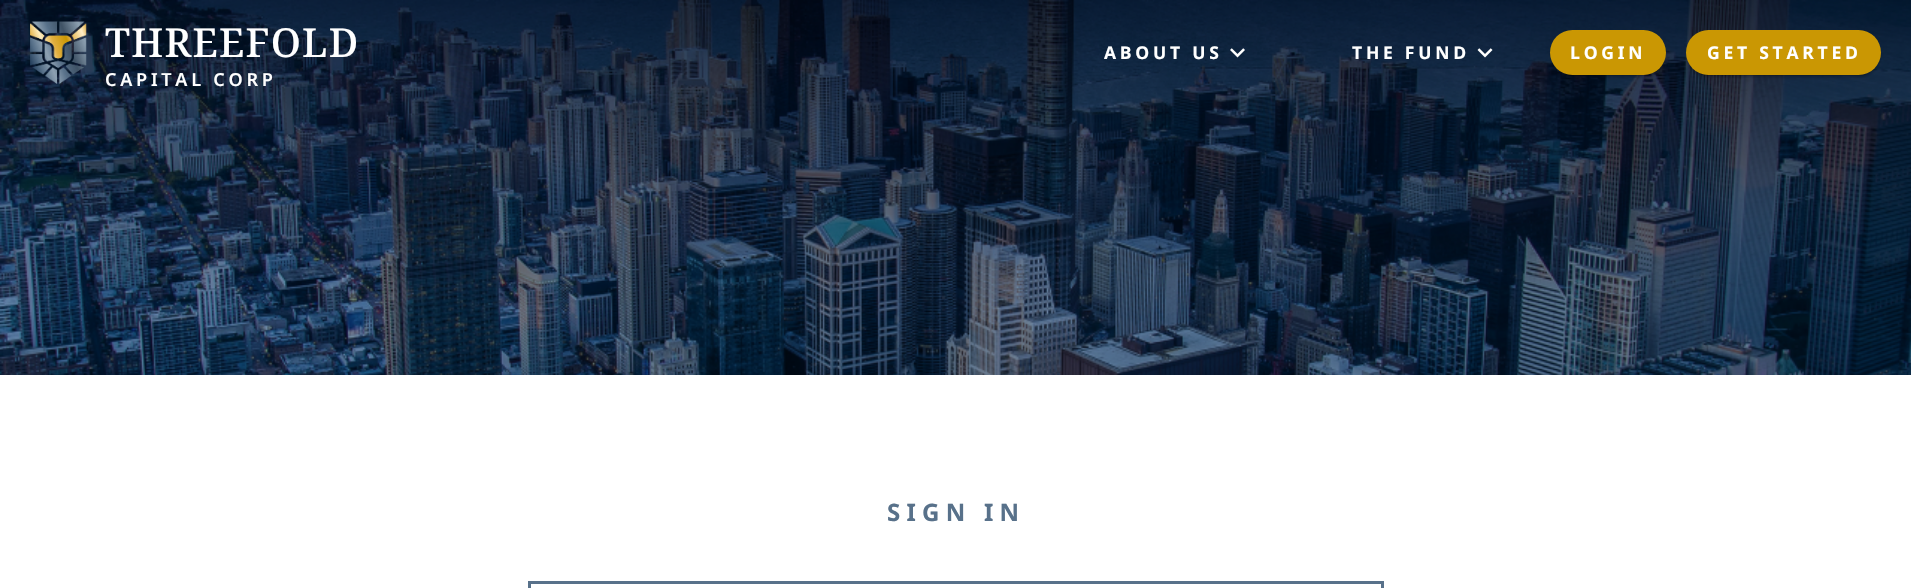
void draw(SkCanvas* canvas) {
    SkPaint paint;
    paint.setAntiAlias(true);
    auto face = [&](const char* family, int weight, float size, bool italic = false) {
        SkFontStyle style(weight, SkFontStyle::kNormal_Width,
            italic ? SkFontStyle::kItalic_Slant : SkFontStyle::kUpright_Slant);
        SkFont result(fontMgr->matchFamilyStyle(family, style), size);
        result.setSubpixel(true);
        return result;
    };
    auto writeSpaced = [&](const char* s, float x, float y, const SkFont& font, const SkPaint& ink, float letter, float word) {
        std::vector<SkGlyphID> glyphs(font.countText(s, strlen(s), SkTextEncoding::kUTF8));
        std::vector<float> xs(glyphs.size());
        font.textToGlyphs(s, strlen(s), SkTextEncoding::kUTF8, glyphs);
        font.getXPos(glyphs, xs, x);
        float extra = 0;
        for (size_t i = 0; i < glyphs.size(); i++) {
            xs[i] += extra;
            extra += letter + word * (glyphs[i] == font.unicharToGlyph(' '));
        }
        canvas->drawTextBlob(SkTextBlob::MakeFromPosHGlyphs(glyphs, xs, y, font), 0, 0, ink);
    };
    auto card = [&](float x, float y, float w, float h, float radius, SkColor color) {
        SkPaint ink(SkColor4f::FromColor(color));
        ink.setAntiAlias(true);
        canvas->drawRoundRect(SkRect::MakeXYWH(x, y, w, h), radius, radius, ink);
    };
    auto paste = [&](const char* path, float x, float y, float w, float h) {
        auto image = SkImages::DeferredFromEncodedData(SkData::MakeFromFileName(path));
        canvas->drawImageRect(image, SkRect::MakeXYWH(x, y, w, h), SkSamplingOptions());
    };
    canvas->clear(SK_ColorWHITE);
    paste("pic1.png", 0, 0, 1911, 375);
    paste("pic2.png", 30, 21, 57, 63);
    auto kFont1 = face("Noto Serif", 500, 40);
    paint.setColor(SK_ColorWHITE);
    writeSpaced("THREEFOLD", 105, 57, kFont1, paint, 1.25f, 0);
    auto kFont2 = face("Noto Sans", 600, 18);
    writeSpaced("CAPITAL CORP", 105, 86, kFont2, paint, 3.75f, 0);
    auto kFont3 = face("Noto Sans", 700, 17.5f);
    writeSpaced("ABOUT US", 1104, 59, kFont3, paint, 3.75f, 0);
    paste("pic3.png", 1230, 48, 15, 10);
    writeSpaced("THE FUND", 1352, 59, kFont3, paint, 3.75f, 0);
    paste("pic4.png", 1477, 48, 16, 10);
    paint.setColor(SkColorSetARGB(36, 0, 0, 0));
    paint.setMaskFilter(SkMaskFilter::MakeBlur(kNormal_SkBlurStyle, 1));
    canvas->drawRoundRect(SkRect::MakeXYWH(1550, 33, 116, 45), 22.5f, 22.5f, paint);
    paint.setMaskFilter(nullptr);
    paint.setColor(SkColorSetARGB(51, 0, 0, 0));
    paint.setMaskFilter(SkMaskFilter::MakeBlur(kNormal_SkBlurStyle, 0.5f));
    canvas->drawRoundRect(SkRect::MakeXYWH(1553, 36, 111, 40), 20, 20, paint);
    paint.setMaskFilter(nullptr);
    card(1550, 30, 116, 45, 22.5f, SkColorSetRGB(202, 151, 3));
    paint.setColor(SK_ColorWHITE);
    writeSpaced("LOGIN", 1570, 59, kFont3, paint, 3.75f, 0);
    paint.setColor(SkColorSetARGB(36, 0, 0, 0));
    paint.setMaskFilter(SkMaskFilter::MakeBlur(kNormal_SkBlurStyle, 1));
    canvas->drawRoundRect(SkRect::MakeXYWH(1686, 33, 195, 45), 22.5f, 22.5f, paint);
    paint.setMaskFilter(nullptr);
    paint.setColor(SkColorSetARGB(51, 0, 0, 0));
    paint.setMaskFilter(SkMaskFilter::MakeBlur(kNormal_SkBlurStyle, 0.5f));
    canvas->drawRoundRect(SkRect::MakeXYWH(1689, 36, 190, 40), 20, 20, paint);
    paint.setMaskFilter(nullptr);
    card(1686, 30, 195, 45, 22.5f, SkColorSetRGB(202, 151, 3));
    paint.setColor(SK_ColorWHITE);
    writeSpaced("GET STARTED", 1707, 59, kFont3, paint, 3.75f, 0);
    auto kFont4 = face("Noto Sans", 700, 24);
    paint.setColor(SkColorSetRGB(88, 113, 138));
    writeSpaced("SIGN IN", 887, 521, kFont4, paint, 6.25f, 0);
    paint.setStyle(SkPaint::kStroke_Style);
    paint.setStrokeWidth(3);
    canvas->drawRect(SkRect::MakeXYWH(529.5f, 582.5f, 853, 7), paint);
}
